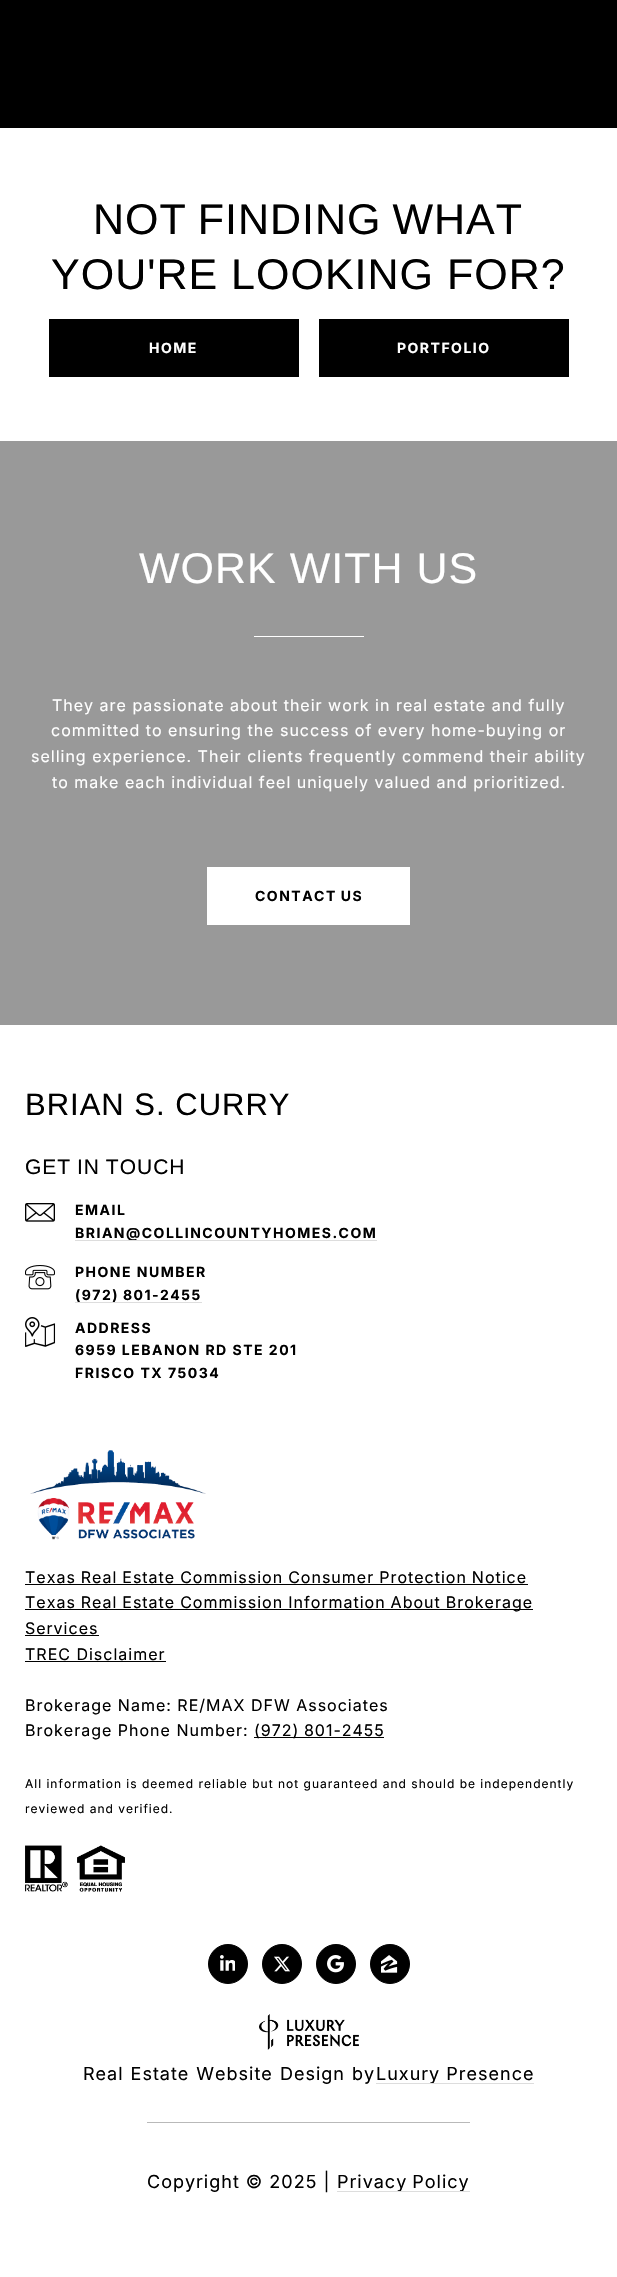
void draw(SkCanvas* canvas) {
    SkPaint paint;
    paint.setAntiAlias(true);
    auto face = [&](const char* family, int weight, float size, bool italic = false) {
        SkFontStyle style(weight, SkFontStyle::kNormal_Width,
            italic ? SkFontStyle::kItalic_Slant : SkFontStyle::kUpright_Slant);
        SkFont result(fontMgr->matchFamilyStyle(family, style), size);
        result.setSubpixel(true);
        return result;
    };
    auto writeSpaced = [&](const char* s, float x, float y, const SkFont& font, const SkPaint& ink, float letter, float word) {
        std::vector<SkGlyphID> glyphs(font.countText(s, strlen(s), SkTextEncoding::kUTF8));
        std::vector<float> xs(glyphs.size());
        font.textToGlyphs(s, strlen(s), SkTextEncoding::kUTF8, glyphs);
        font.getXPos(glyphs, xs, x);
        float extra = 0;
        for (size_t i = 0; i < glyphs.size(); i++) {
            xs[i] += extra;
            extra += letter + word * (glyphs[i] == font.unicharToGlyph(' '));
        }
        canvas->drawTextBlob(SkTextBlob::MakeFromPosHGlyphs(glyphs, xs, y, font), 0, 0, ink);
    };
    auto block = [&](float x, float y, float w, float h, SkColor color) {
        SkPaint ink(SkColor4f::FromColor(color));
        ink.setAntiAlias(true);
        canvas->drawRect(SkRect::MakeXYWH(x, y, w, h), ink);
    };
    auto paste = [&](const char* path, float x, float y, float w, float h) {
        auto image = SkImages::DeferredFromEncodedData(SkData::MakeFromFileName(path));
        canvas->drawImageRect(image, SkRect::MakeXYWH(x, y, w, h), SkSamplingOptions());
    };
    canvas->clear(SK_ColorWHITE);
    block(0, 0, 617, 128, SK_ColorBLACK);
    auto kFont1 = face("Arimo", 400, 43);
    paint.setColor(SK_ColorBLACK);
    writeSpaced("NOT FINDING WHAT", 93, 234, kFont1, paint, 1, -2);
    writeSpaced("YOU'RE LOOKING FOR?", 51, 289, kFont1, paint, 1, 0);
    block(49, 319, 250, 58, SK_ColorBLACK);
    auto kFont2 = face("Inter", 700, 14);
    paint.setColor(SK_ColorWHITE);
    writeSpaced("HOME", 149, 353, kFont2, paint, 1.5f, 0);
    block(319, 319, 250, 58, SK_ColorBLACK);
    writeSpaced("PORTFOLIO", 397, 353, kFont2, paint, 1.5f, 0);
    block(0, 441, 617, 584, SkColorSetRGB(153, 153, 153));
    writeSpaced("WORK WITH US", 139, 583, kFont1, paint, 1, 0);
    block(254, 636, 110, 1, SK_ColorWHITE);
    auto kFont3 = face("Inter", 400, 16);
    writeSpaced("They are passionate about their work in real estate and fully", 52, 711, kFont3, paint, 1, 0);
    writeSpaced("committed to ensuring the success of every home-buying or", 51, 736, kFont3, paint, 1, 0);
    writeSpaced("selling experience. Their clients frequently commend their ability", 31, 762, kFont3, paint, 1, 0);
    writeSpaced("to make each individual feel uniquely valued and prioritized.", 52, 788, kFont3, paint, 1, 0);
    block(207, 867, 203, 58, SK_ColorWHITE);
    paint.setColor(SK_ColorBLACK);
    writeSpaced("CONTACT US", 255, 901, kFont2, paint, 1.5f, -1);
    auto kFont4 = face("Arimo", 400, 31);
    writeSpaced("BRIAN S. CURRY", 25, 1115, kFont4, paint, 1, 0);
    auto kFont5 = face("Arimo", 400, 21);
    writeSpaced("GET IN TOUCH", 25, 1174, kFont5, paint, 1, -1);
    paste("pic1.png", 25, 1203, 30, 19);
    writeSpaced("EMAIL", 75, 1215, kFont2, paint, 1.5f, 0);
    writeSpaced("BRIAN@COLLINCOUNTYHOMES.COM", 75, 1238, kFont2, paint, 1.5f, 0);
    block(75, 1240, 302, 1, SkColorSetRGB(221, 221, 221));
    paste("pic2.png", 25, 1265, 30, 25);
    writeSpaced("PHONE NUMBER", 75, 1277, kFont2, paint, 1.5f, 0);
    writeSpaced("(972) 801-2455", 75, 1300, kFont2, paint, 1.5f, -1);
    block(75, 1302, 127, 1, SkColorSetRGB(221, 221, 221));
    paste("pic3.png", 25, 1317, 31, 30);
    writeSpaced("ADDRESS", 75, 1333, kFont2, paint, 1.5f, 0);
    writeSpaced("6959 LEBANON RD STE 201", 75, 1355, kFont2, paint, 1.5f, 0);
    writeSpaced("FRISCO TX 75034", 75, 1378, kFont2, paint, 1.5f, 0);
    paste("pic4.png", 30, 1450, 176, 90);
    writeSpaced("Texas Real Estate Commission Consumer Protection Notice", 25, 1583, kFont3, paint, 1, -0.5f);
    block(25, 1584, 503, 1, SK_ColorBLACK);
    block(25, 1609, 508, 1, SK_ColorBLACK);
    writeSpaced("Texas Real Estate Commission Information About Brokerage", 25, 1608, kFont3, paint, 1, -0.5f);
    writeSpaced("Services", 25, 1634, kFont3, paint, 1, 0);
    block(25, 1635, 74, 1, SK_ColorBLACK);
    writeSpaced("TREC Disclaimer", 25, 1660, kFont3, paint, 1, 0);
    block(25, 1661, 141, 1, SK_ColorBLACK);
    writeSpaced("Brokerage Name: RE/MAX DFW Associates", 25, 1711, kFont3, paint, 1, 0);
    writeSpaced("Brokerage Phone Number:", 25, 1736, kFont3, paint, 1, 0);
    block(254, 1737, 130, 1, SK_ColorBLACK);
    writeSpaced("(972) 801-2455", 254, 1736, kFont3, paint, 1, -1);
    auto kFont6 = face("Inter", 400, 12);
    writeSpaced("All information is deemed reliable but not guaranteed and should be independently", 25, 1788, kFont6, paint, 1, 0);
    writeSpaced("reviewed and verified.", 25, 1813, kFont6, paint, 1, 0);
    paste("pic5.png", 25, 1845, 100, 47);
    canvas->drawCircle(228, 1964, 19.5f, paint);
    paint.setStyle(SkPaint::kStroke_Style);
    paint.setStrokeWidth(1);
    canvas->drawCircle(228, 1964, 19.5f, paint);
    paste("pic6.png", 220, 1955, 15, 16);
    paint.setStyle(SkPaint::kFill_Style);
    canvas->drawCircle(282, 1964, 19.5f, paint);
    paint.setStyle(SkPaint::kStroke_Style);
    canvas->drawCircle(282, 1964, 19.5f, paint);
    paste("pic7.png", 274, 1956, 16, 16);
    paint.setStyle(SkPaint::kFill_Style);
    canvas->drawCircle(336, 1964, 19.5f, paint);
    paint.setStyle(SkPaint::kStroke_Style);
    canvas->drawCircle(336, 1964, 19.5f, paint);
    paste("pic8.png", 327, 1955, 17, 18);
    paint.setStyle(SkPaint::kFill_Style);
    canvas->drawCircle(390, 1964, 19.5f, paint);
    paint.setStyle(SkPaint::kStroke_Style);
    canvas->drawCircle(390, 1964, 19.5f, paint);
    paste("pic9.png", 381, 1955, 17, 18);
    paste("pic10.png", 259, 2014, 100, 36);
    auto kFont7 = face("Inter", 400, 18);
    paint.setStyle(SkPaint::kFill_Style);
    writeSpaced("Real Estate Website Design by", 83, 2080, kFont7, paint, 1, 1);
    writeSpaced("Luxury Presence", 376, 2080, kFont7, paint, 1, 0);
    block(376, 2083, 158, 1, SkColorSetRGB(221, 221, 221));
    block(147, 2122, 323, 1, SkColorSetRGB(185, 185, 185));
    writeSpaced("Copyright © 2025 |", 147, 2188, kFont7, paint, 1, 0);
    writeSpaced("Privacy Policy", 337, 2188, kFont7, paint, 1, -1);
    block(337, 2191, 133, 1, SkColorSetRGB(221, 221, 221));
}
